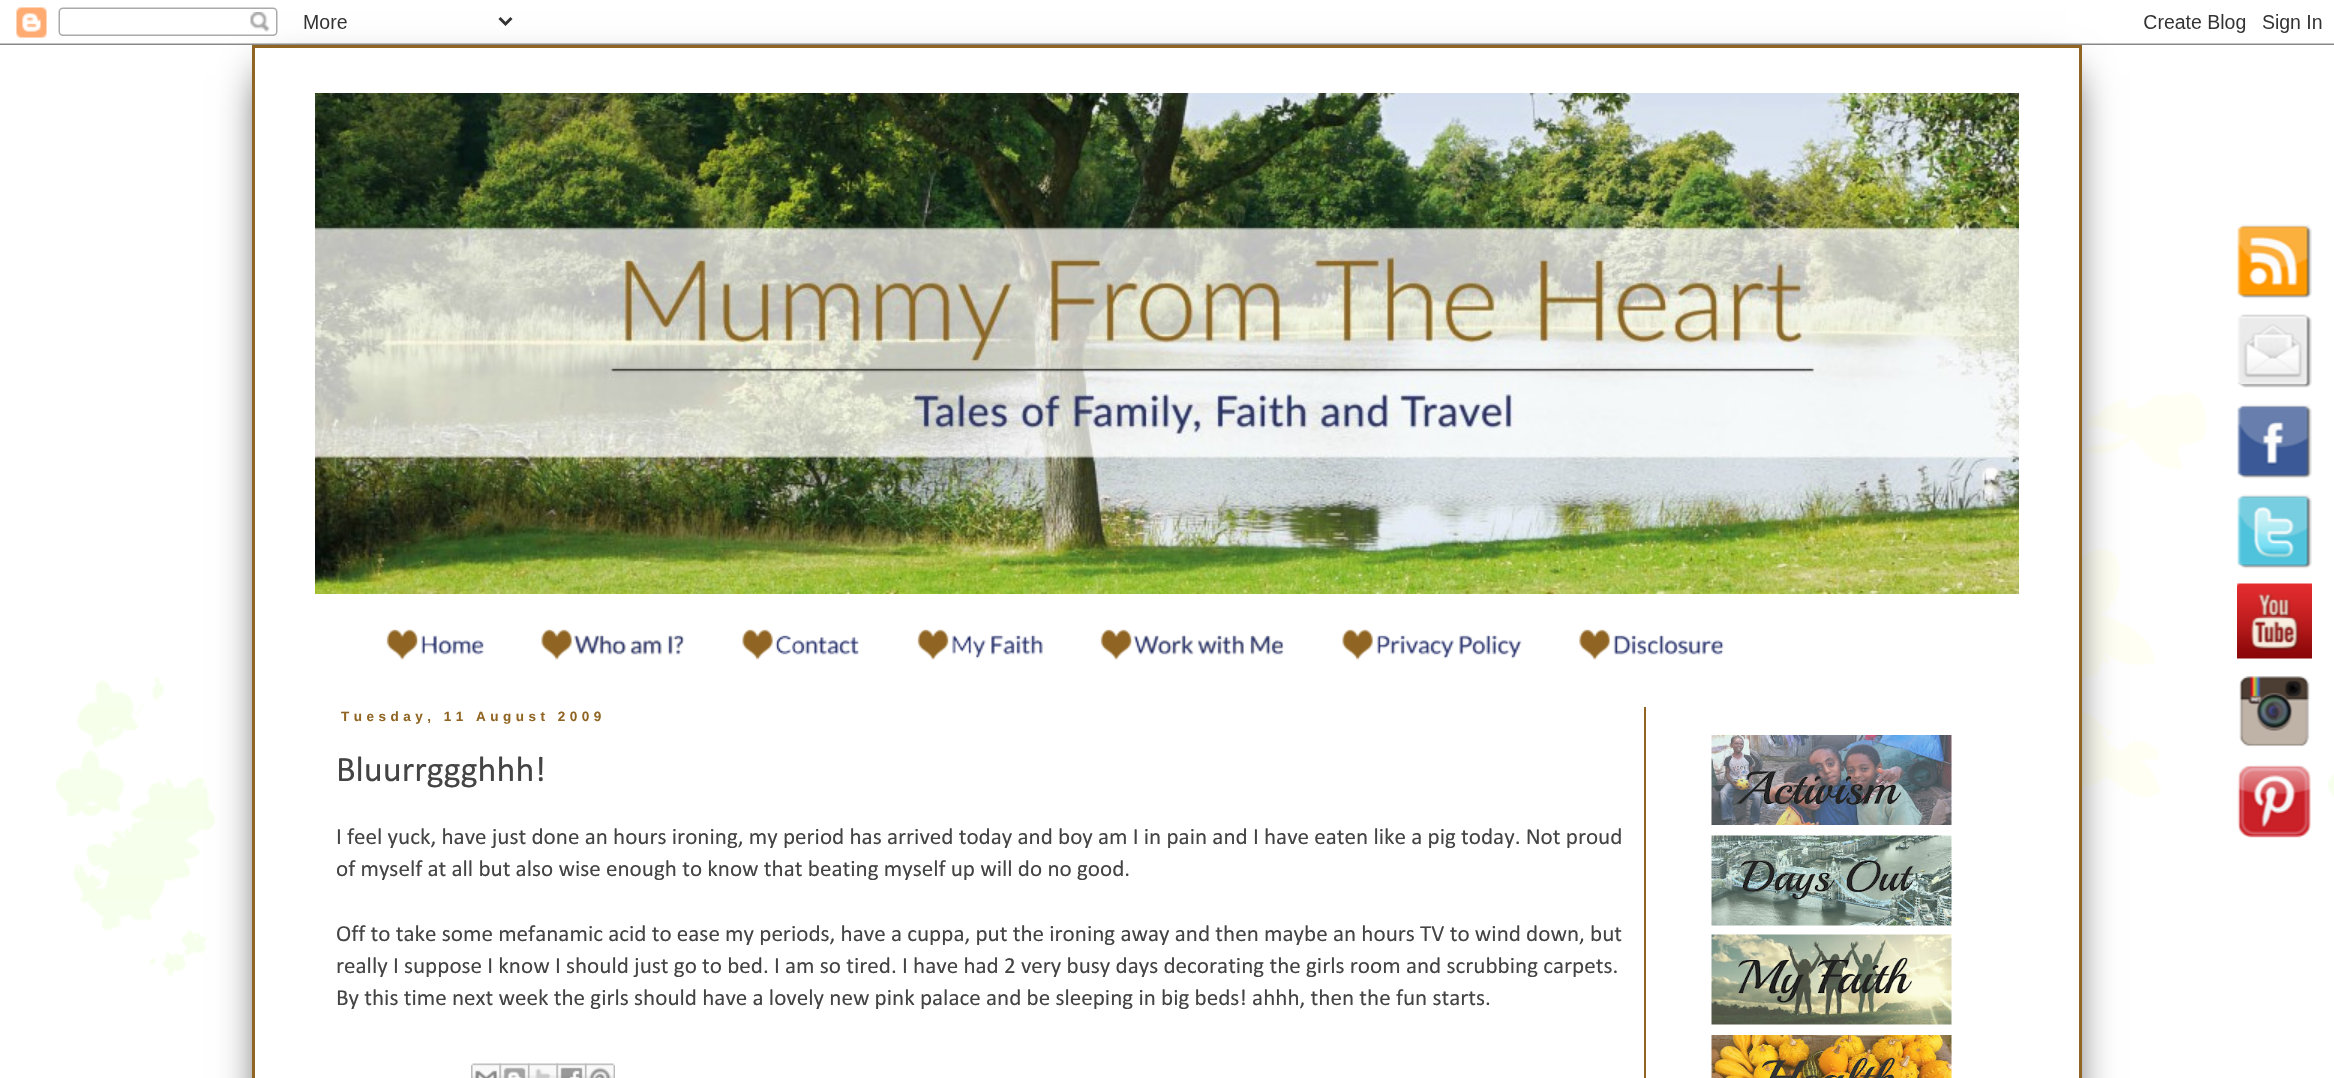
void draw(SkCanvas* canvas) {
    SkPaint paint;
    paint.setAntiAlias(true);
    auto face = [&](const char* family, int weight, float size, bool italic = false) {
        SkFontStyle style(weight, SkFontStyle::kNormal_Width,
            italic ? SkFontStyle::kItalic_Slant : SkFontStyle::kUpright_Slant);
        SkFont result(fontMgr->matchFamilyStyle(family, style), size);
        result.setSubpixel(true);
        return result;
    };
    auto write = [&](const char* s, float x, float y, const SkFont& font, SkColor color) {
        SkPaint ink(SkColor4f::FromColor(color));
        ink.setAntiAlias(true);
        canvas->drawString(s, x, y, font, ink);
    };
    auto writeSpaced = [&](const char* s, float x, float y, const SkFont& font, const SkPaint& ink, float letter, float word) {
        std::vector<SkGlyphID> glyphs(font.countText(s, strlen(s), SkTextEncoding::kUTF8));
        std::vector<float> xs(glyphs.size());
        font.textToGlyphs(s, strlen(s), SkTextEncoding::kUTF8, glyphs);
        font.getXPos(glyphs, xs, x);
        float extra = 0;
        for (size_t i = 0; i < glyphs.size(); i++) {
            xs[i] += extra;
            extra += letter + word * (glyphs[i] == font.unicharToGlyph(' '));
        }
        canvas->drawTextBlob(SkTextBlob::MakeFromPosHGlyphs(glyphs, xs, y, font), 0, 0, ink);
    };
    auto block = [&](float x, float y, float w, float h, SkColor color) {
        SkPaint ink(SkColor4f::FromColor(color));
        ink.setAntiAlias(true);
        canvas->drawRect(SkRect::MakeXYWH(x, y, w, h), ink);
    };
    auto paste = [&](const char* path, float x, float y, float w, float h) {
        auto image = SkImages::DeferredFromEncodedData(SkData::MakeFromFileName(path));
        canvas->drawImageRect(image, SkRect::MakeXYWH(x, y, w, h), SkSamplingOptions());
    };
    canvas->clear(SK_ColorWHITE);
    paste("pic1.png", 55, 393, 2279, 585);
    paint.setColor(SK_ColorBLACK);
    paint.setMaskFilter(SkMaskFilter::MakeBlur(kNormal_SkBlurStyle, 21));
    canvas->drawRect(SkRect::MakeXYWH(267, 75, 1800, 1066), paint);
    paint.setMaskFilter(nullptr);
    paste("pic2.png", 0, 7, 2334, 38);
    paint.setColor(SK_ColorWHITE);
    canvas->drawRect(SkRect::MakeXYWH(253.5f, 46.5f, 1827, 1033), paint);
    paint.setStyle(SkPaint::kStroke_Style);
    paint.setStrokeWidth(3);
    paint.setColor(SkColorSetRGB(144, 101, 35));
    canvas->drawRect(SkRect::MakeXYWH(253.5f, 46.5f, 1827, 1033), paint);
    paste("pic3.png", 315, 93, 1704, 501);
    paste("pic4.png", 2237, 224, 75, 75);
    paste("pic5.png", 2237, 314, 75, 74);
    paste("pic6.png", 2237, 404, 75, 75);
    paste("pic7.png", 2237, 494, 75, 75);
    paste("pic8.png", 2237, 583, 75, 76);
    paste("pic9.png", 2239, 676, 71, 71);
    paste("pic10.png", 2237, 765, 74, 73);
    paste("pic11.png", 386, 629, 98, 32);
    paste("pic12.png", 541, 629, 144, 32);
    paste("pic13.png", 742, 629, 117, 31);
    paste("pic14.png", 917, 629, 126, 32);
    paste("pic15.png", 1100, 629, 184, 32);
    paste("pic16.png", 1342, 629, 180, 32);
    paste("pic17.png", 1579, 629, 145, 32);
    auto kFont1 = face("Liberation Sans", 700, 13.5f);
    paint.setStyle(SkPaint::kFill_Style);
    writeSpaced("Tuesday, 11 August 2009", 341, 721, kFont1, paint, 4.5f, 0);
    auto kFont2 = face("Calibri", 400, 36);
    write("Bluurrggghhh!", 336, 781, kFont2, SkColorSetRGB(68, 68, 68));
    auto kFont3 = face("Calibri", 400, 23.1f);
    write("I feel yuck, have just done an hours ironing, my period has arrived today and boy am I in pain and I have eaten like a pig today. Not proud", 336, 844, kFont3, SkColorSetRGB(68, 68, 68));
    write("of myself at all but also wise enough to know that beating myself up will do no good.", 336, 876, kFont3, SkColorSetRGB(68, 68, 68));
    write("Off to take some mefanamic acid to ease my periods, have a cuppa, put the ironing away and then maybe an hours TV to wind down, but", 336, 941, kFont3, SkColorSetRGB(68, 68, 68));
    write("really I suppose I know I should just go to bed. I am so tired. I have had 2 very busy days decorating the girls room and scrubbing carpets.", 336, 973, kFont3, SkColorSetRGB(68, 68, 68));
    write("By this time next week the girls should have a lovely new pink palace and be sleeping in big beds! ahhh, then the fun starts.", 336, 1005, kFont3, SkColorSetRGB(68, 68, 68));
    paste("pic18.png", 471, 1063, 30, 15);
    paste("pic19.png", 499, 1063, 31, 15);
    paste("pic20.png", 528, 1063, 30, 15);
    paste("pic21.png", 556, 1063, 31, 15);
    paste("pic22.png", 585, 1063, 30, 15);
    paste("pic23.png", 1711, 735, 241, 90);
    paste("pic24.png", 1711, 835, 241, 91);
    paste("pic25.png", 1711, 934, 241, 91);
    paste("pic26.png", 1711, 1035, 241, 43);
    block(1644, 707, 2, 371, SkColorSetRGB(144, 101, 35));
}
